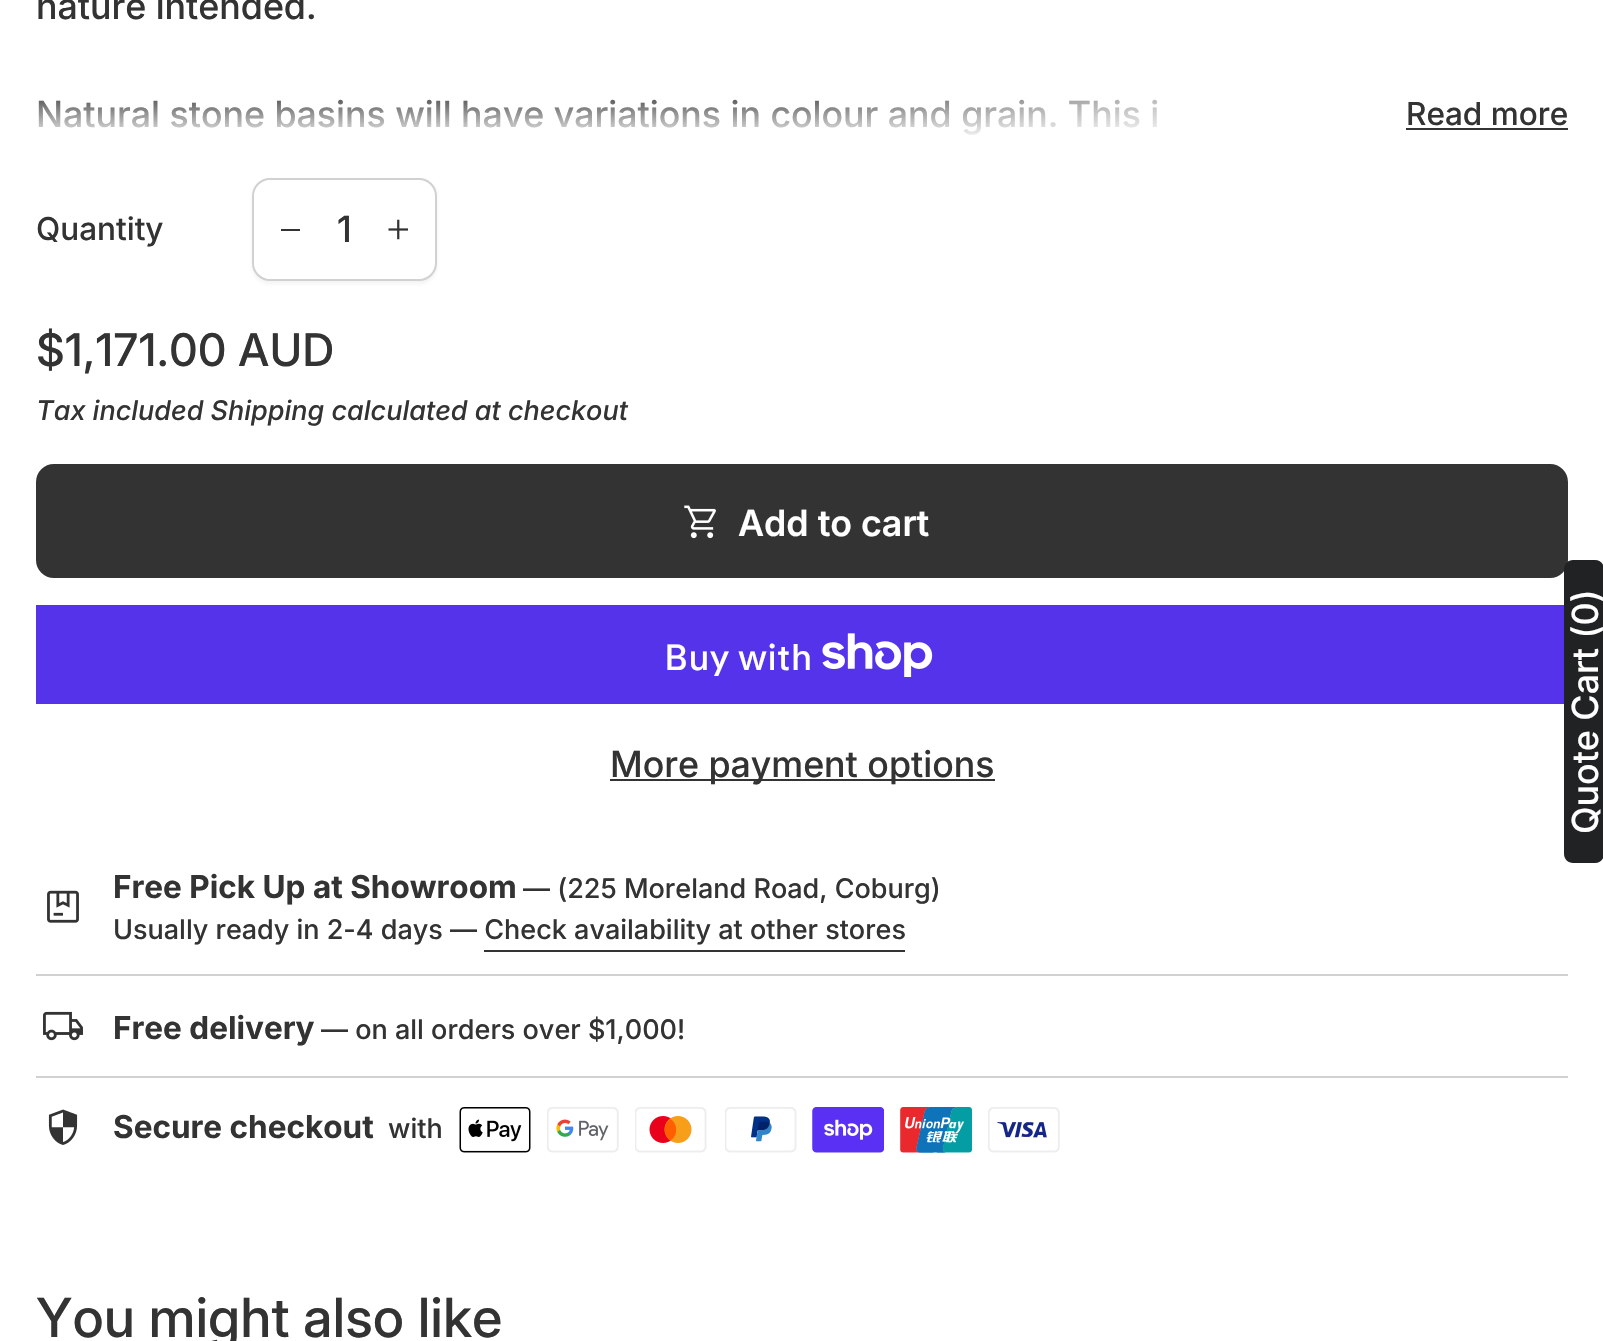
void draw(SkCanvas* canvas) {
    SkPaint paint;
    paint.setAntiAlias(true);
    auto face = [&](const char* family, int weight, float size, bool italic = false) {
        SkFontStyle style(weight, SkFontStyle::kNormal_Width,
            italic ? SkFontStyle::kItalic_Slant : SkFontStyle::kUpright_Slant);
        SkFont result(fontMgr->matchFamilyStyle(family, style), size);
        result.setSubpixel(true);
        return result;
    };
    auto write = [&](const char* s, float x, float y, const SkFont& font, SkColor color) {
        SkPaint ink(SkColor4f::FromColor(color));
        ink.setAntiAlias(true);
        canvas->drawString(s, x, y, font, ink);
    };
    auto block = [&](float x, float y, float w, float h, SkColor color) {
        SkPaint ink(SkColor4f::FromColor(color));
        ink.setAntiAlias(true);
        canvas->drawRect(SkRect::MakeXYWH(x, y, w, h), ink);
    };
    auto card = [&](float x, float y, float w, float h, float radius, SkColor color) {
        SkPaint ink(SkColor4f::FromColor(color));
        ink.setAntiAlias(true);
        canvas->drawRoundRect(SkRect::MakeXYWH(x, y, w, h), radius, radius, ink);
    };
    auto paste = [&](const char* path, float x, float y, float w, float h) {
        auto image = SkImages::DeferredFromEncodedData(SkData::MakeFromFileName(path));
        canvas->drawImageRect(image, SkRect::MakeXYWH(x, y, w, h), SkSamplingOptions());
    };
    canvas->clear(SK_ColorWHITE);
    auto kFont1 = face("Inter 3", 500, 36);
    write("nature intended.", 36, 19, kFont1, SkColorSetRGB(51, 51, 51));
    write("Natural stone basins will have variations in colour and grain. This i", 36, 127, kFont1, SkColorSetRGB(51, 51, 51));
    {
        const SkColor colors[] = {SK_ColorWHITE, SkColorSetARGB(0, 255, 255, 255)};
        const float stops[] = {0.1f, 0.5f};
        const SkPoint ends[] = {{1568, 117}, {36, 117}};
        paint.setShader(SkGradientShader::MakeLinear(ends, colors, stops, 2, SkTileMode::kClamp));
        paint.setAlpha(255);
    }
    canvas->drawRect(SkRect::MakeXYWH(815, 99, 343, 36), paint);
    {
        const SkColor colors[] = {SK_ColorWHITE, SkColorSetARGB(0, 255, 255, 255)};
        const float stops[] = {0, 1};
        const SkPoint ends[] = {{802, 142}, {802, 88}};
        paint.setShader(SkGradientShader::MakeLinear(ends, colors, stops, 2, SkTileMode::kClamp));
        paint.setAlpha(255);
    }
    canvas->drawRect(SkRect::MakeXYWH(38, 99, 1120, 36), paint);
    auto kFont2 = face("Inter", 500, 31.5f);
    write("Read more", 1406, 125, kFont2, SkColorSetRGB(51, 51, 51));
    block(1406, 128, 162, 2, SkColorSetRGB(51, 51, 51));
    write("Quantity", 36, 240, kFont2, SkColorSetRGB(51, 51, 51));
    paint.setShader(nullptr);
    paint.setColor(SkColorSetARGB(13, 16, 24, 40));
    paint.setMaskFilter(SkMaskFilter::MakeBlur(kNormal_SkBlurStyle, 2));
    canvas->drawRoundRect(SkRect::MakeXYWH(252, 180, 185, 104), 18, 18, paint);
    paint.setMaskFilter(nullptr);
    paint.setColor(SK_ColorWHITE);
    canvas->drawRoundRect(SkRect::MakeXYWH(253, 179, 183, 101), 17, 17, paint);
    paint.setStyle(SkPaint::kStroke_Style);
    paint.setStrokeWidth(2);
    paint.setColor(SkColorSetRGB(209, 209, 209));
    canvas->drawRoundRect(SkRect::MakeXYWH(253, 179, 183, 101), 17, 17, paint);
    card(254, 180, 180, 99, 18, SK_ColorWHITE);
    block(281, 229, 19, 2, SkColorSetRGB(51, 51, 51));
    write("1", 337, 242, kFont1, SkColorSetRGB(51, 51, 51));
    paste("pic1.png", 388, 219, 20, 21);
    auto kFont3 = face("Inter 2", 500, 45);
    write("$1,171.00 AUD", 36, 366, kFont3, SkColorSetRGB(51, 51, 51));
    auto kFont4 = face("Inter", 500, 27, true);
    write("Tax included Shipping calculated at checkout", 36, 420, kFont4, SkColorSetRGB(51, 51, 51));
    paint.setStyle(SkPaint::kFill_Style);
    paint.setColor(SkColorSetRGB(51, 51, 51));
    canvas->drawRoundRect(SkRect::MakeXYWH(37, 465, 1530, 112), 17, 17, paint);
    paint.setStyle(SkPaint::kStroke_Style);
    canvas->drawRoundRect(SkRect::MakeXYWH(37, 465, 1530, 112), 17, 17, paint);
    paste("pic2.png", 684, 505, 32, 34);
    auto kFont5 = face("Inter", 600, 36);
    write("Add to cart", 738, 536, kFont5, SK_ColorWHITE);
    block(36, 605, 1528, 99, SkColorSetRGB(84, 51, 235));
    auto kFont6 = face("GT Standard", 500, 36);
    write("Buy with", 664, 670, kFont6, SK_ColorWHITE);
    paste("pic3.png", 822, 633, 111, 44);
    block(610, 779, 385, 2, SkColorSetRGB(51, 51, 51));
    write("More payment options", 610, 777, kFont1, SkColorSetRGB(51, 51, 51));
    block(36, 974, 1532, 2, SkColorSetRGB(209, 209, 209));
    paste("pic4.png", 47, 890, 32, 33);
    auto kFont7 = face("Inter", 700, 31.5f);
    write("Free Pick Up at Showroom", 113, 898, kFont7, SkColorSetRGB(51, 51, 51));
    auto kFont8 = face("Inter", 500, 27);
    write("— (225 Moreland Road, Coburg)", 523, 898, kFont8, SkColorSetRGB(51, 51, 51));
    write("Usually ready in 2-4 days — Check availability at other stores", 113, 939, kFont8, SkColorSetRGB(51, 51, 51));
    block(484, 950, 421, 2, SkColorSetRGB(51, 51, 51));
    paste("pic5.png", 43, 1011, 40, 30);
    write("Free delivery", 113, 1039, kFont7, SkColorSetRGB(51, 51, 51));
    write("— on all orders over $1,000!", 321, 1039, kFont8, SkColorSetRGB(51, 51, 51));
    block(36, 1076, 1532, 2, SkColorSetRGB(209, 209, 209));
    paste("pic6.png", 48, 1109, 30, 36);
    write("Secure checkout", 113, 1138, kFont7, SkColorSetRGB(51, 51, 51));
    write("with", 388, 1138, kFont8, SkColorSetRGB(51, 51, 51));
    paste("pic7.png", 459, 1107, 72, 46);
    paste("pic8.png", 547, 1107, 72, 46);
    paste("pic9.png", 635, 1107, 72, 46);
    paste("pic10.png", 725, 1107, 72, 46);
    paste("pic11.png", 812, 1107, 72, 46);
    paste("pic12.png", 900, 1107, 72, 46);
    paste("pic13.png", 988, 1107, 72, 46);
    auto kFont9 = face("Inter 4", 500, 54);
    write("You might also like", 36, 1337, kFont9, SkColorSetRGB(51, 51, 51));
    paint.setStyle(SkPaint::kFill_Style);
    paint.setColor(SkColorSetRGB(32, 34, 35));
    canvas->drawPath(SkPathBuilder().moveTo(1564, 854).lineTo(1564, 569).cubicTo(1564, 564, 1568, 560, 1573, 560).lineTo(1595, 560).cubicTo(1600, 560, 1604, 564, 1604, 569).lineTo(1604, 854).cubicTo(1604, 859, 1600, 863, 1595, 863).lineTo(1573, 863).cubicTo(1568, 863, 1564, 859, 1564, 854).close().detach(), paint);
    canvas->save();
    canvas->rotate(-90, 1598, 834);
    write("Quote Cart (0)", 1598, 834, kFont1, SK_ColorWHITE);
    canvas->restore();
}
